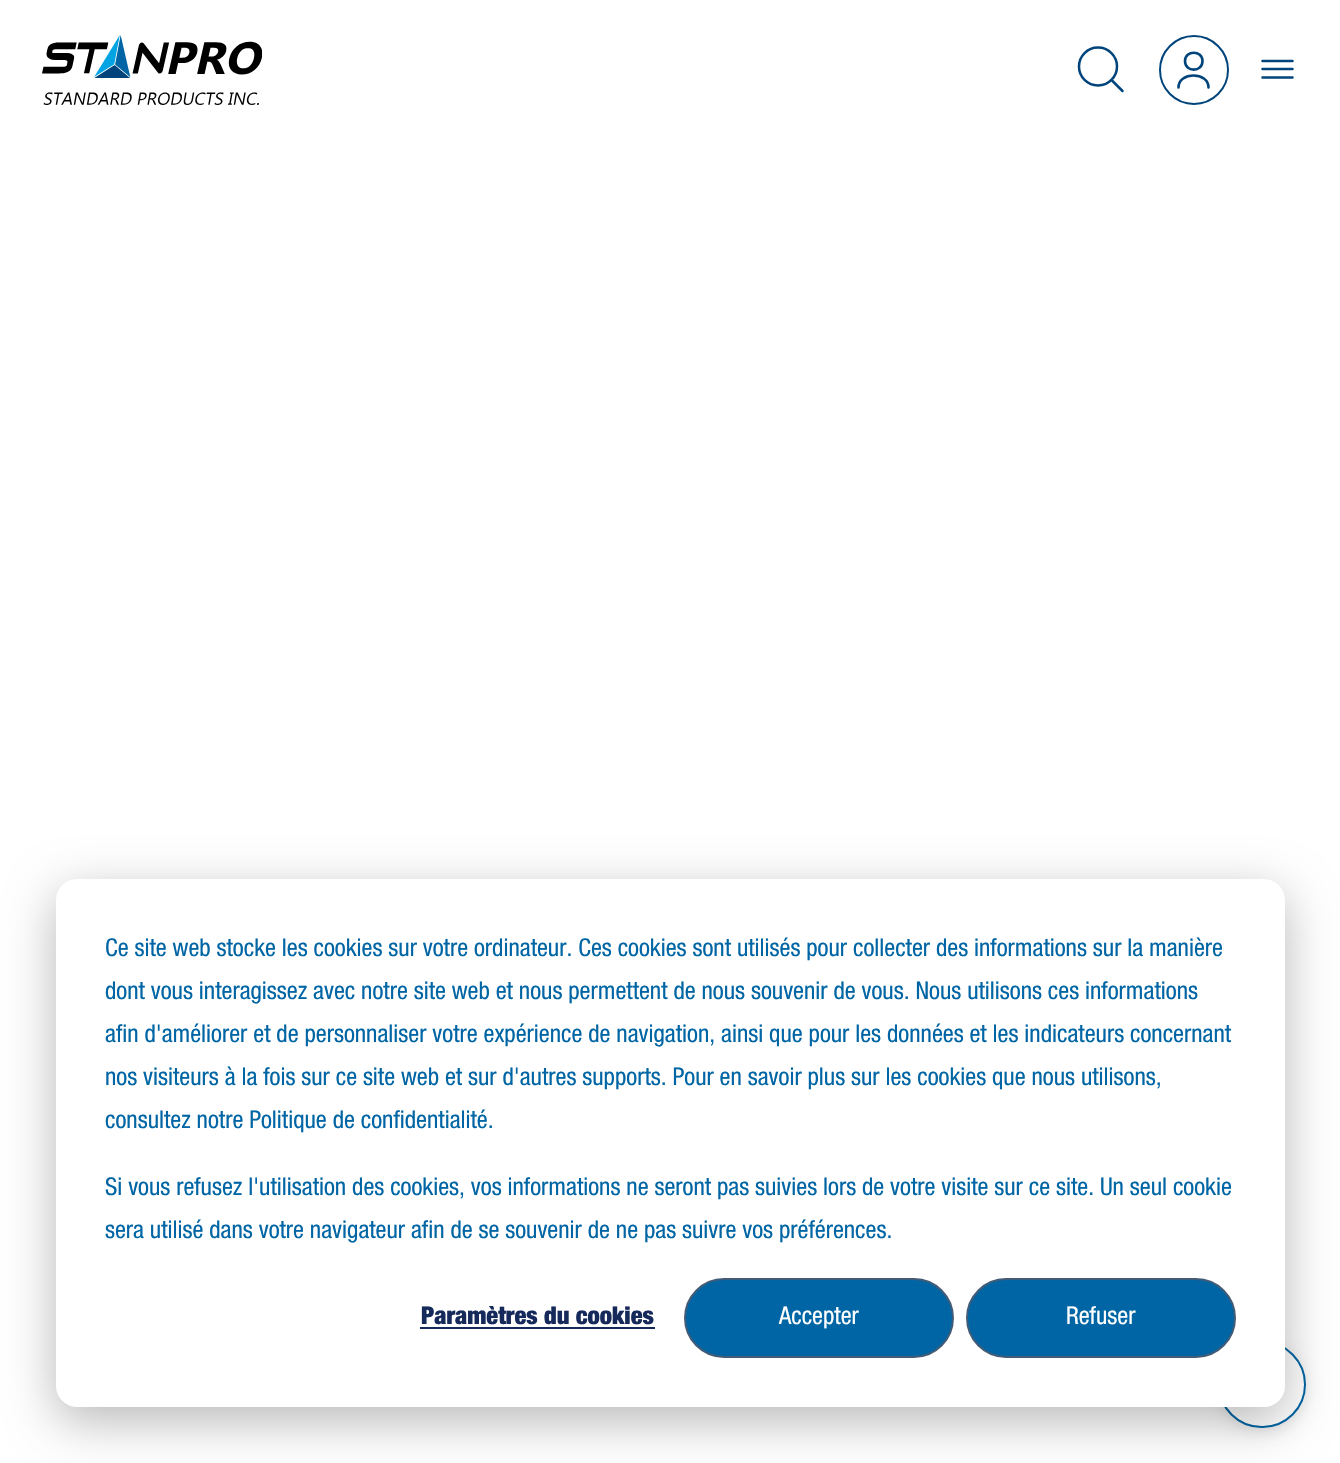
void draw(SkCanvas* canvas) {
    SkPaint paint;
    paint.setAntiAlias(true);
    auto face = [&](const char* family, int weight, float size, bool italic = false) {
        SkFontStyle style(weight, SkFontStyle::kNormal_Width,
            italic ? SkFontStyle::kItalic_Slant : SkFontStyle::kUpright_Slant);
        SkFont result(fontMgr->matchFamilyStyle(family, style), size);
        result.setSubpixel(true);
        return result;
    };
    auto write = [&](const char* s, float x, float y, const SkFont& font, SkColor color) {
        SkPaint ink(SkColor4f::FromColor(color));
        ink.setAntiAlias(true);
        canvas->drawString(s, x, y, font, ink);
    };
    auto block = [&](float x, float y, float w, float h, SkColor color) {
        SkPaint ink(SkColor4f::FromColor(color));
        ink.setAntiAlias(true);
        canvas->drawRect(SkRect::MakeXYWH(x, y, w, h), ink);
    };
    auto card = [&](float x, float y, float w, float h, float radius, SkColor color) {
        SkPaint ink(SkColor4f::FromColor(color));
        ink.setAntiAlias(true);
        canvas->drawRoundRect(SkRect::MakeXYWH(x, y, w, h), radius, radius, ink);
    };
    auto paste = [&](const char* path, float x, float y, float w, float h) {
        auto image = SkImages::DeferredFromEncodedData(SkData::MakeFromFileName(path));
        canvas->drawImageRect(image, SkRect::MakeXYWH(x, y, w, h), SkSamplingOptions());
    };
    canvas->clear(SK_ColorWHITE);
    paste("pic1.png", 42, 35, 221, 70);
    paint.setStyle(SkPaint::kStroke_Style);
    paint.setStrokeWidth(2.5f);
    paint.setStrokeCap(SkPaint::kRound_Cap);
    paint.setStrokeJoin(SkPaint::kRound_Join);
    paint.setColor(SkColorSetRGB(0, 68, 123));
    canvas->drawPath(SkPathBuilder().moveTo(1098, 85.5f).cubicTo(1108.5f, 85.5f, 1117, 77, 1117, 66.5f).cubicTo(1117, 56, 1108.5f, 47.5f, 1098, 47.5f).cubicTo(1087.5f, 47.5f, 1079, 56, 1079, 66.5f).cubicTo(1079, 77, 1087.5f, 85.5f, 1098, 85.5f).close().moveTo(1111.5f, 80).lineTo(1122.5f, 91).detach(), paint);
    paint.setStrokeWidth(2);
    paint.setStrokeCap(SkPaint::kButt_Cap);
    paint.setStrokeJoin(SkPaint::kMiter_Join);
    canvas->drawCircle(1194, 70, 34, paint);
    paint.setStrokeWidth(2.6f);
    paint.setStrokeCap(SkPaint::kRound_Cap);
    paint.setStrokeJoin(SkPaint::kRound_Join);
    canvas->drawPath(SkPathBuilder().moveTo(1208.5f, 87.5f).cubicTo(1208.5f, 71.5f, 1178.5f, 71.5f, 1178.5f, 87.5f).moveTo(1202.5f, 61).cubicTo(1202.5f, 72.5f, 1185, 72.5f, 1185, 61).cubicTo(1185, 50, 1202.5f, 50, 1202.5f, 61).close().detach(), paint);
    paint.setStrokeWidth(2.5f);
    paint.setStrokeJoin(SkPaint::kMiter_Join);
    canvas->drawPath(SkPathBuilder().moveTo(1262.5f, 61).lineTo(1292.5f, 61).moveTo(1262.5f, 69).lineTo(1292.5f, 69).moveTo(1262.5f, 77.5f).lineTo(1292.5f, 77.5f).detach(), paint);
    paint.setStyle(SkPaint::kFill_Style);
    paint.setColor(SkColorSetARGB(26, 0, 0, 0));
    paint.setMaskFilter(SkMaskFilter::MakeBlur(kNormal_SkBlurStyle, 7));
    canvas->drawRoundRect(SkRect::MakeXYWH(1218, 1344, 88, 88), 44, 44, paint);
    paint.setMaskFilter(nullptr);
    paint.setColor(SK_ColorWHITE);
    canvas->drawRoundRect(SkRect::MakeXYWH(1219, 1342, 86, 85), 42.5f, 42.5f, paint);
    paint.setStyle(SkPaint::kStroke_Style);
    paint.setStrokeWidth(2);
    paint.setStrokeCap(SkPaint::kButt_Cap);
    paint.setColor(SkColorSetRGB(0, 101, 164));
    canvas->drawRoundRect(SkRect::MakeXYWH(1219, 1342, 86, 85), 42.5f, 42.5f, paint);
    paint.setStyle(SkPaint::kFill_Style);
    paint.setColor(SkColorSetARGB(71, 0, 0, 0));
    paint.setMaskFilter(SkMaskFilter::MakeBlur(kNormal_SkBlurStyle, 24.5f));
    canvas->drawRoundRect(SkRect::MakeXYWH(56, 893, 1229, 528), 21, 21, paint);
    paint.setMaskFilter(nullptr);
    card(56, 879, 1229, 528, 21, SK_ColorWHITE);
    auto kFont1 = face("Helvetica Neue", 400, 24.5f);
    write("Ce site web stocke les cookies sur votre ordinateur. Ces cookies sont utilisés pour collecter des informations sur la manière", 105, 956, kFont1, SkColorSetRGB(0, 101, 164));
    write("dont vous interagissez avec notre site web et nous permettent de nous souvenir de vous. Nous utilisons ces informations", 105, 999, kFont1, SkColorSetRGB(0, 101, 164));
    write("afin d'améliorer et de personnaliser votre expérience de navigation, ainsi que pour les données et les indicateurs concernant", 105, 1042, kFont1, SkColorSetRGB(0, 101, 164));
    write("nos visiteurs à la fois sur ce site web et sur d'autres supports. Pour en savoir plus sur les cookies que nous utilisons,", 105, 1085, kFont1, SkColorSetRGB(0, 101, 164));
    write("consultez notre Politique de confidentialité.", 105, 1128, kFont1, SkColorSetRGB(0, 101, 164));
    write("Si vous refusez l'utilisation des cookies, vos informations ne seront pas suivies lors de votre visite sur ce site. Un seul cookie", 105, 1195, kFont1, SkColorSetRGB(0, 101, 164));
    write("sera utilisé dans votre navigateur afin de se souvenir de ne pas suivre vos préférences.", 105, 1238, kFont1, SkColorSetRGB(0, 101, 164));
    auto kFont2 = face("Helvetica Neue", 900, 24.5f);
    write("Paramètres du cookies", 421, 1324, kFont2, SkColorSetRGB(21, 41, 90));
    block(420, 1327, 235, 2, SkColorSetRGB(21, 41, 90));
    paint.setColor(SkColorSetRGB(0, 101, 164));
    canvas->drawRoundRect(SkRect::MakeXYWH(685, 1279, 268, 78), 39, 39, paint);
    paint.setStyle(SkPaint::kStroke_Style);
    paint.setColor(SkColorSetRGB(66, 91, 118));
    canvas->drawRoundRect(SkRect::MakeXYWH(685, 1279, 268, 78), 39, 39, paint);
    write("Accepter", 779, 1324, kFont1, SK_ColorWHITE);
    paint.setStyle(SkPaint::kFill_Style);
    paint.setColor(SkColorSetRGB(0, 101, 164));
    canvas->drawRoundRect(SkRect::MakeXYWH(967, 1279, 268, 78), 39, 39, paint);
    paint.setStyle(SkPaint::kStroke_Style);
    paint.setColor(SkColorSetRGB(66, 91, 118));
    canvas->drawRoundRect(SkRect::MakeXYWH(967, 1279, 268, 78), 39, 39, paint);
    write("Refuser", 1066, 1324, kFont1, SK_ColorWHITE);
}
